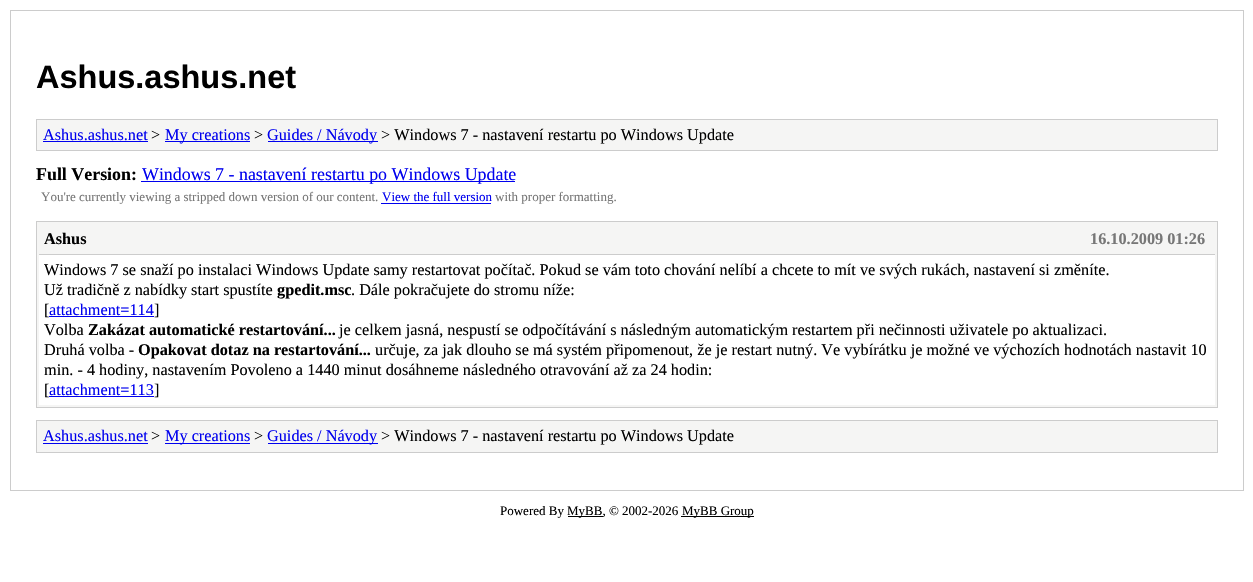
void draw(SkCanvas* canvas) {
    SkPaint paint;
    paint.setAntiAlias(true);
    auto face = [&](const char* family, int weight, float size, bool italic = false) {
        SkFontStyle style(weight, SkFontStyle::kNormal_Width,
            italic ? SkFontStyle::kItalic_Slant : SkFontStyle::kUpright_Slant);
        SkFont result(fontMgr->matchFamilyStyle(family, style), size);
        result.setSubpixel(true);
        return result;
    };
    auto write = [&](const char* s, float x, float y, const SkFont& font, SkColor color) {
        SkPaint ink(SkColor4f::FromColor(color));
        ink.setAntiAlias(true);
        canvas->drawString(s, x, y, font, ink);
    };
    auto block = [&](float x, float y, float w, float h, SkColor color) {
        SkPaint ink(SkColor4f::FromColor(color));
        ink.setAntiAlias(true);
        canvas->drawRect(SkRect::MakeXYWH(x, y, w, h), ink);
    };
    canvas->clear(SK_ColorWHITE);
    paint.setStyle(SkPaint::kStroke_Style);
    paint.setStrokeWidth(1);
    paint.setColor(SkColorSetRGB(204, 204, 204));
    canvas->drawRect(SkRect::MakeXYWH(10.5f, 10.5f, 1233, 480), paint);
    auto kFont1 = face("Liberation Sans", 700, 32.5f);
    write("Ashus.ashus.net", 36, 88, kFont1, SK_ColorBLACK);
    paint.setStyle(SkPaint::kFill_Style);
    paint.setColor(SkColorSetRGB(245, 245, 244));
    canvas->drawRect(SkRect::MakeXYWH(36.5f, 119.5f, 1181, 31), paint);
    paint.setStyle(SkPaint::kStroke_Style);
    paint.setColor(SkColorSetRGB(204, 204, 204));
    canvas->drawRect(SkRect::MakeXYWH(36.5f, 119.5f, 1181, 31), paint);
    auto kFont2 = face("Liberation Serif", 400, 16.25f);
    write("Ashus.ashus.net", 43, 140, kFont2, SkColorSetRGB(0, 0, 238));
    block(43, 141, 105, 1, SkColorSetRGB(0, 0, 238));
    write(">", 151, 140, kFont2, SK_ColorBLACK);
    block(165, 141, 85, 1, SkColorSetRGB(0, 0, 238));
    write("My creations", 165, 140, kFont2, SkColorSetRGB(0, 0, 238));
    write(">", 254, 140, kFont2, SK_ColorBLACK);
    block(268, 141, 110, 1, SkColorSetRGB(0, 0, 238));
    write("Guides / Návody", 267, 140, kFont2, SkColorSetRGB(0, 0, 238));
    write("> Windows 7 - nastavení restartu po Windows Update", 381, 140, kFont2, SK_ColorBLACK);
    auto kFont3 = face("Liberation Serif", 700, 17.9f);
    write("Full Version:", 36, 180, kFont3, SK_ColorBLACK);
    block(141, 181, 374, 1, SkColorSetRGB(0, 0, 238));
    auto kFont4 = face("Liberation Serif", 400, 17.9f);
    write("Windows 7 - nastavení restartu po Windows Update", 142, 180, kFont4, SkColorSetRGB(0, 0, 238));
    auto kFont5 = face("Liberation Serif", 400, 13);
    write("You're currently viewing a stripped down version of our content.", 41, 201, kFont5, SkColorSetRGB(119, 119, 119));
    write("View the full version", 382, 201, kFont5, SkColorSetRGB(0, 0, 238));
    block(381, 203, 110, 1, SkColorSetRGB(0, 0, 238));
    write("with proper formatting.", 495, 201, kFont5, SkColorSetRGB(119, 119, 119));
    paint.setStyle(SkPaint::kFill_Style);
    paint.setColor(SkColorSetRGB(245, 245, 244));
    canvas->drawRect(SkRect::MakeXYWH(36.5f, 221.5f, 1181, 186), paint);
    paint.setStyle(SkPaint::kStroke_Style);
    paint.setColor(SkColorSetRGB(204, 204, 204));
    canvas->drawRect(SkRect::MakeXYWH(36.5f, 221.5f, 1181, 186), paint);
    block(39, 254, 1176, 1, SkColorSetRGB(204, 204, 204));
    auto kFont6 = face("Liberation Serif", 700, 16.25f);
    write("Ashus", 44, 244, kFont6, SK_ColorBLACK);
    write("16.10.2009 01:26", 1090, 244, kFont6, SkColorSetRGB(119, 119, 119));
    block(39, 255, 1176, 150, SK_ColorWHITE);
    write("Windows 7 se snaží po instalaci Windows Update samy restartovat počítač. Pokud se vám toto chování nelíbí a chcete to mít ve svých rukách, nastavení si změníte.", 44, 275, kFont2, SK_ColorBLACK);
    write("Už tradičně z nabídky start spustíte", 44, 295, kFont2, SK_ColorBLACK);
    write("gpedit.msc", 277, 295, kFont6, SK_ColorBLACK);
    write(". Dále pokračujete do stromu níže:", 351, 295, kFont2, SK_ColorBLACK);
    write("[", 44, 315, kFont2, SK_ColorBLACK);
    write("attachment=114", 49, 315, kFont2, SkColorSetRGB(0, 0, 238));
    block(49, 316, 105, 1, SkColorSetRGB(0, 0, 238));
    write("]", 154, 315, kFont2, SK_ColorBLACK);
    write("Volba", 44, 335, kFont2, SK_ColorBLACK);
    write("Zakázat automatické restartování...", 88, 335, kFont6, SK_ColorBLACK);
    write("je celkem jasná, nespustí se odpočítávání s následným automatickým restartem při nečinnosti uživatele po aktualizaci.", 339, 335, kFont2, SK_ColorBLACK);
    write("Druhá volba -", 44, 355, kFont2, SK_ColorBLACK);
    write("Opakovat dotaz na restartování...", 138, 355, kFont6, SK_ColorBLACK);
    write("určuje, za jak dlouho se má systém připomenout, že je restart nutný. Ve vybírátku je možné ve výchozích hodnotách nastavit 10", 375, 355, kFont2, SK_ColorBLACK);
    write("min. - 4 hodiny, nastavením Povoleno a 1440 minut dosáhneme následného otravování až za 24 hodin:", 44, 375, kFont2, SK_ColorBLACK);
    write("[", 44, 395, kFont2, SK_ColorBLACK);
    write("attachment=113", 49, 395, kFont2, SkColorSetRGB(0, 0, 238));
    block(49, 396, 105, 1, SkColorSetRGB(0, 0, 238));
    write("]", 154, 395, kFont2, SK_ColorBLACK);
    paint.setStyle(SkPaint::kFill_Style);
    paint.setColor(SkColorSetRGB(245, 245, 244));
    canvas->drawRect(SkRect::MakeXYWH(36.5f, 420.5f, 1181, 32), paint);
    paint.setStyle(SkPaint::kStroke_Style);
    paint.setColor(SkColorSetRGB(204, 204, 204));
    canvas->drawRect(SkRect::MakeXYWH(36.5f, 420.5f, 1181, 32), paint);
    write("Ashus.ashus.net", 43, 441, kFont2, SkColorSetRGB(0, 0, 238));
    block(43, 443, 105, 1, SkColorSetRGB(0, 0, 238));
    write(">", 151, 441, kFont2, SK_ColorBLACK);
    block(165, 443, 85, 1, SkColorSetRGB(0, 0, 238));
    write("My creations", 165, 441, kFont2, SkColorSetRGB(0, 0, 238));
    write(">", 254, 441, kFont2, SK_ColorBLACK);
    block(268, 443, 110, 1, SkColorSetRGB(0, 0, 238));
    write("Guides / Návody", 267, 441, kFont2, SkColorSetRGB(0, 0, 238));
    write("> Windows 7 - nastavení restartu po Windows Update", 381, 441, kFont2, SK_ColorBLACK);
    write("Powered By", 500, 515, kFont5, SK_ColorBLACK);
    block(568, 516, 35, 1, SK_ColorBLACK);
    write("MyBB, © 2002-2026", 567, 515, kFont5, SK_ColorBLACK);
    block(681, 516, 73, 1, SK_ColorBLACK);
    write("MyBB Group", 682, 515, kFont5, SK_ColorBLACK);
}
